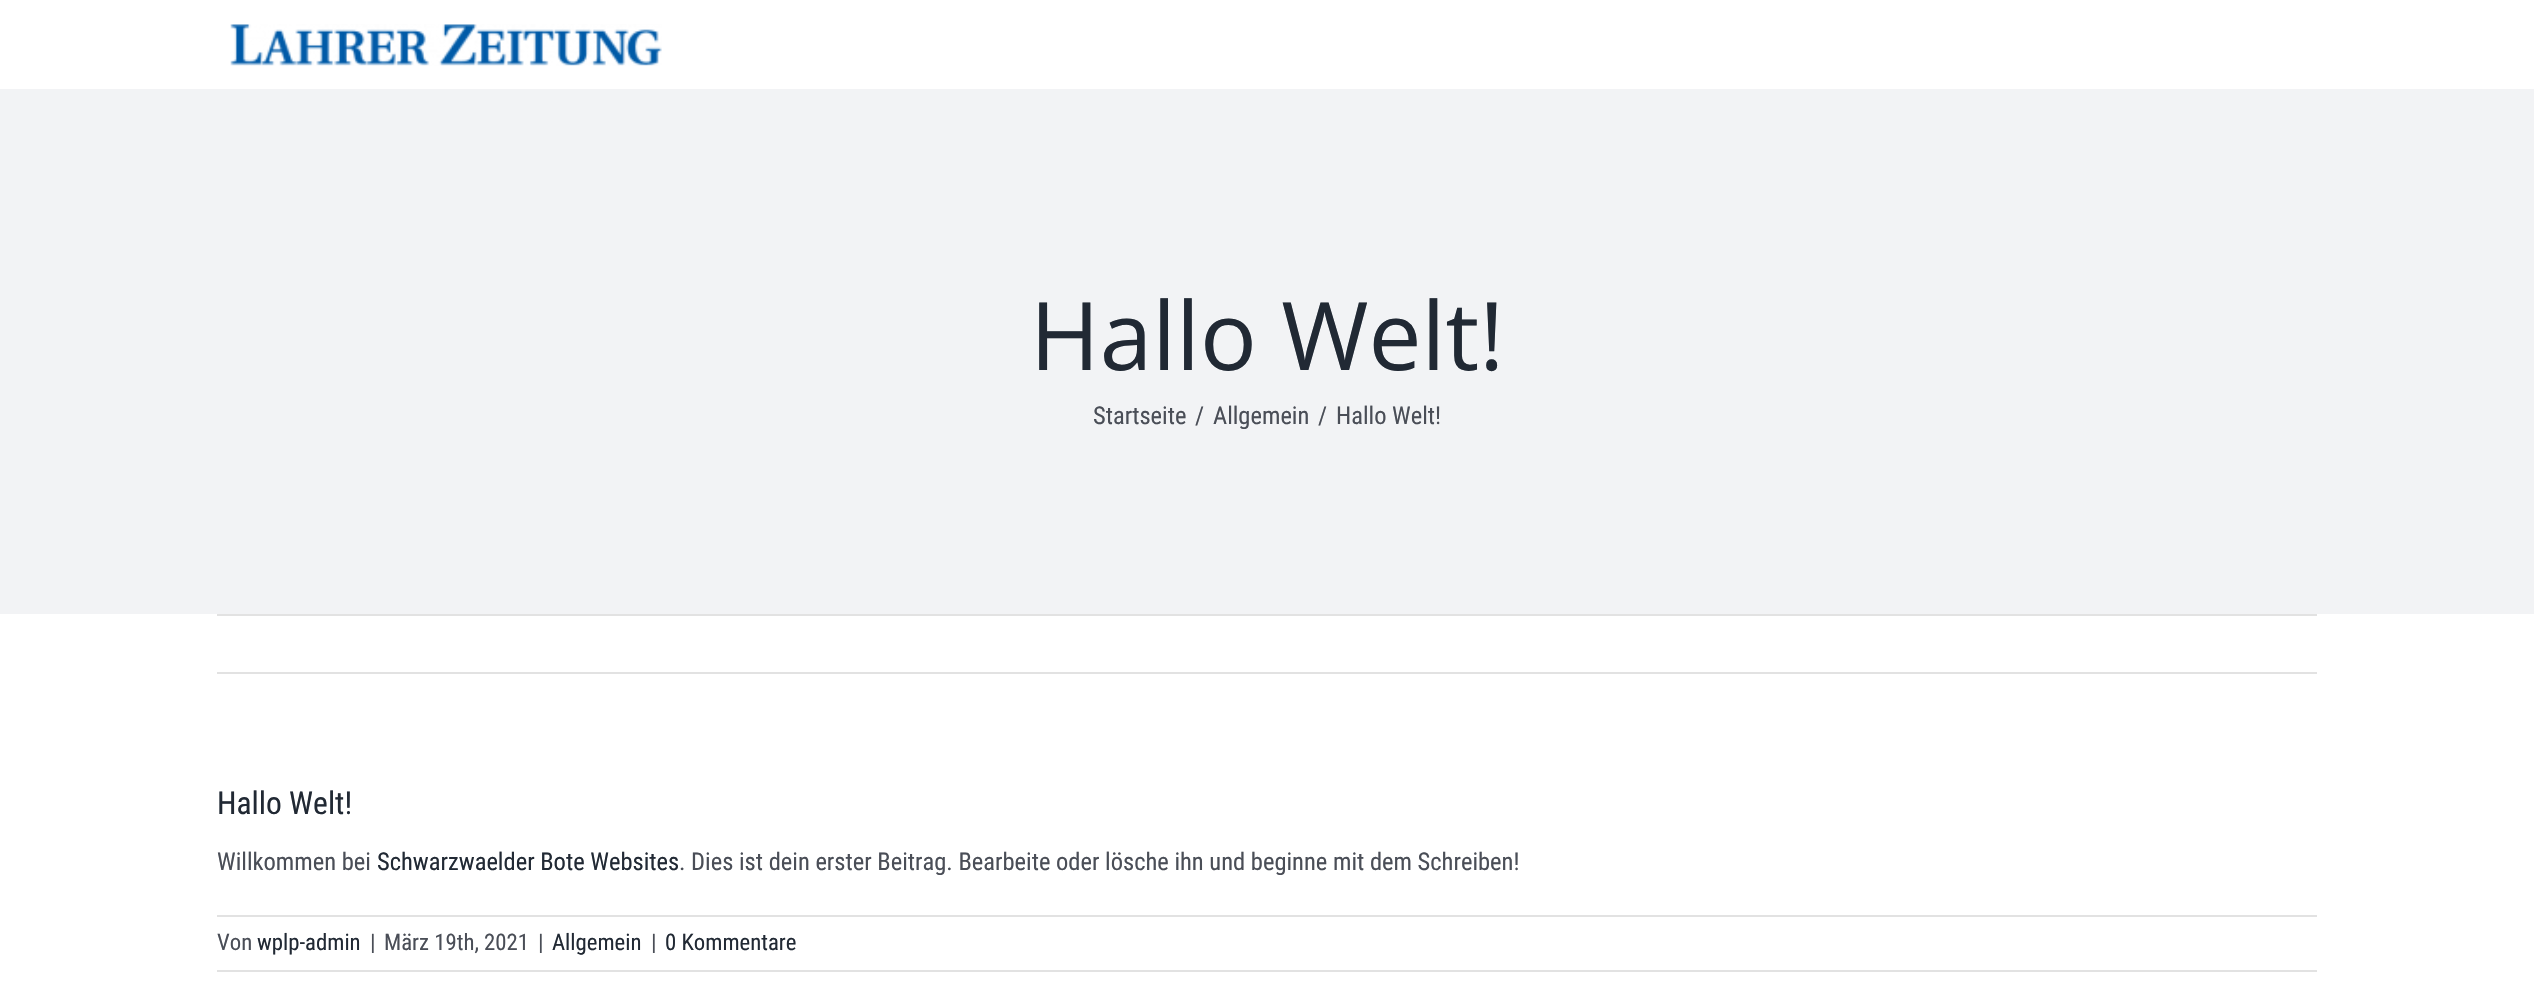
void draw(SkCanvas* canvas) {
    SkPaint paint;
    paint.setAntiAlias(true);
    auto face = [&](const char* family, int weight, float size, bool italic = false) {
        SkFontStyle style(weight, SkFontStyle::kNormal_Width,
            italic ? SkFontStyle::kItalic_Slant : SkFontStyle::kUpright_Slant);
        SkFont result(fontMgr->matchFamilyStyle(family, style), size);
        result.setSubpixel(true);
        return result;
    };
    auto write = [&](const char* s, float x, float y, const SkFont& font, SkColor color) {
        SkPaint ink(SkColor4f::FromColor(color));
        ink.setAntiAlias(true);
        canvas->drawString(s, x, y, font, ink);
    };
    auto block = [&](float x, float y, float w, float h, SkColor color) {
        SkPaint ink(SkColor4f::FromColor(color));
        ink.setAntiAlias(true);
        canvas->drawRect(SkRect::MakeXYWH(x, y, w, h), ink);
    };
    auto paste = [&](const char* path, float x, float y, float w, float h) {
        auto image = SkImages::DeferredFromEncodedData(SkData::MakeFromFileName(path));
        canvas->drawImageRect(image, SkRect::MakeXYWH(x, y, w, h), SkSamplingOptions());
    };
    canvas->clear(SK_ColorWHITE);
    paste("pic1.png", 230, 24, 432, 42);
    block(0, 89, 2534, 525, SkColorSetRGB(242, 243, 245));
    auto kFont1 = face("Open Sans", 400, 94.5f);
    write("Hallo Welt!", 1030, 370, kFont1, SkColorSetRGB(33, 41, 52));
    auto kFont2 = face("Roboto Condensed", 400, 24.5f);
    write("Startseite", 1093, 424, kFont2, SkColorSetRGB(74, 78, 87));
    write("/", 1195, 424, kFont2, SkColorSetRGB(74, 78, 87));
    write("Allgemein", 1213, 424, kFont2, SkColorSetRGB(74, 78, 87));
    write("/", 1318, 424, kFont2, SkColorSetRGB(74, 78, 87));
    write("Hallo Welt!", 1336, 424, kFont2, SkColorSetRGB(74, 78, 87));
    block(217, 614, 2100, 2, SkColorSetRGB(226, 226, 226));
    block(217, 672, 2100, 2, SkColorSetRGB(226, 226, 226));
    auto kFont3 = face("Roboto Condensed", 400, 31.5f);
    write("Hallo Welt!", 217, 814, kFont3, SkColorSetRGB(33, 41, 52));
    write("Willkommen bei", 217, 870, kFont2, SkColorSetRGB(74, 78, 87));
    write("Schwarzwaelder Bote Websites", 377, 870, kFont2, SkColorSetRGB(33, 41, 52));
    write(". Dies ist dein erster Beitrag. Bearbeite oder lösche ihn und beginne mit dem Schreiben!", 679, 870, kFont2, SkColorSetRGB(74, 78, 87));
    block(217, 915, 2100, 2, SkColorSetRGB(226, 226, 226));
    block(217, 970, 2100, 2, SkColorSetRGB(226, 226, 226));
    auto kFont4 = face("Roboto Condensed", 400, 22.75f);
    write("Von", 217, 950, kFont4, SkColorSetRGB(74, 78, 87));
    write("wplp-admin", 257, 950, kFont4, SkColorSetRGB(33, 41, 52));
    write("|", 370, 950, kFont4, SkColorSetRGB(74, 78, 87));
    write("März 19th, 2021", 384, 950, kFont4, SkColorSetRGB(74, 78, 87));
    write("|", 538, 950, kFont4, SkColorSetRGB(74, 78, 87));
    write("Allgemein", 552, 950, kFont4, SkColorSetRGB(33, 41, 52));
    write("|", 651, 950, kFont4, SkColorSetRGB(74, 78, 87));
    write("0 Kommentare", 665, 950, kFont4, SkColorSetRGB(33, 41, 52));
}
